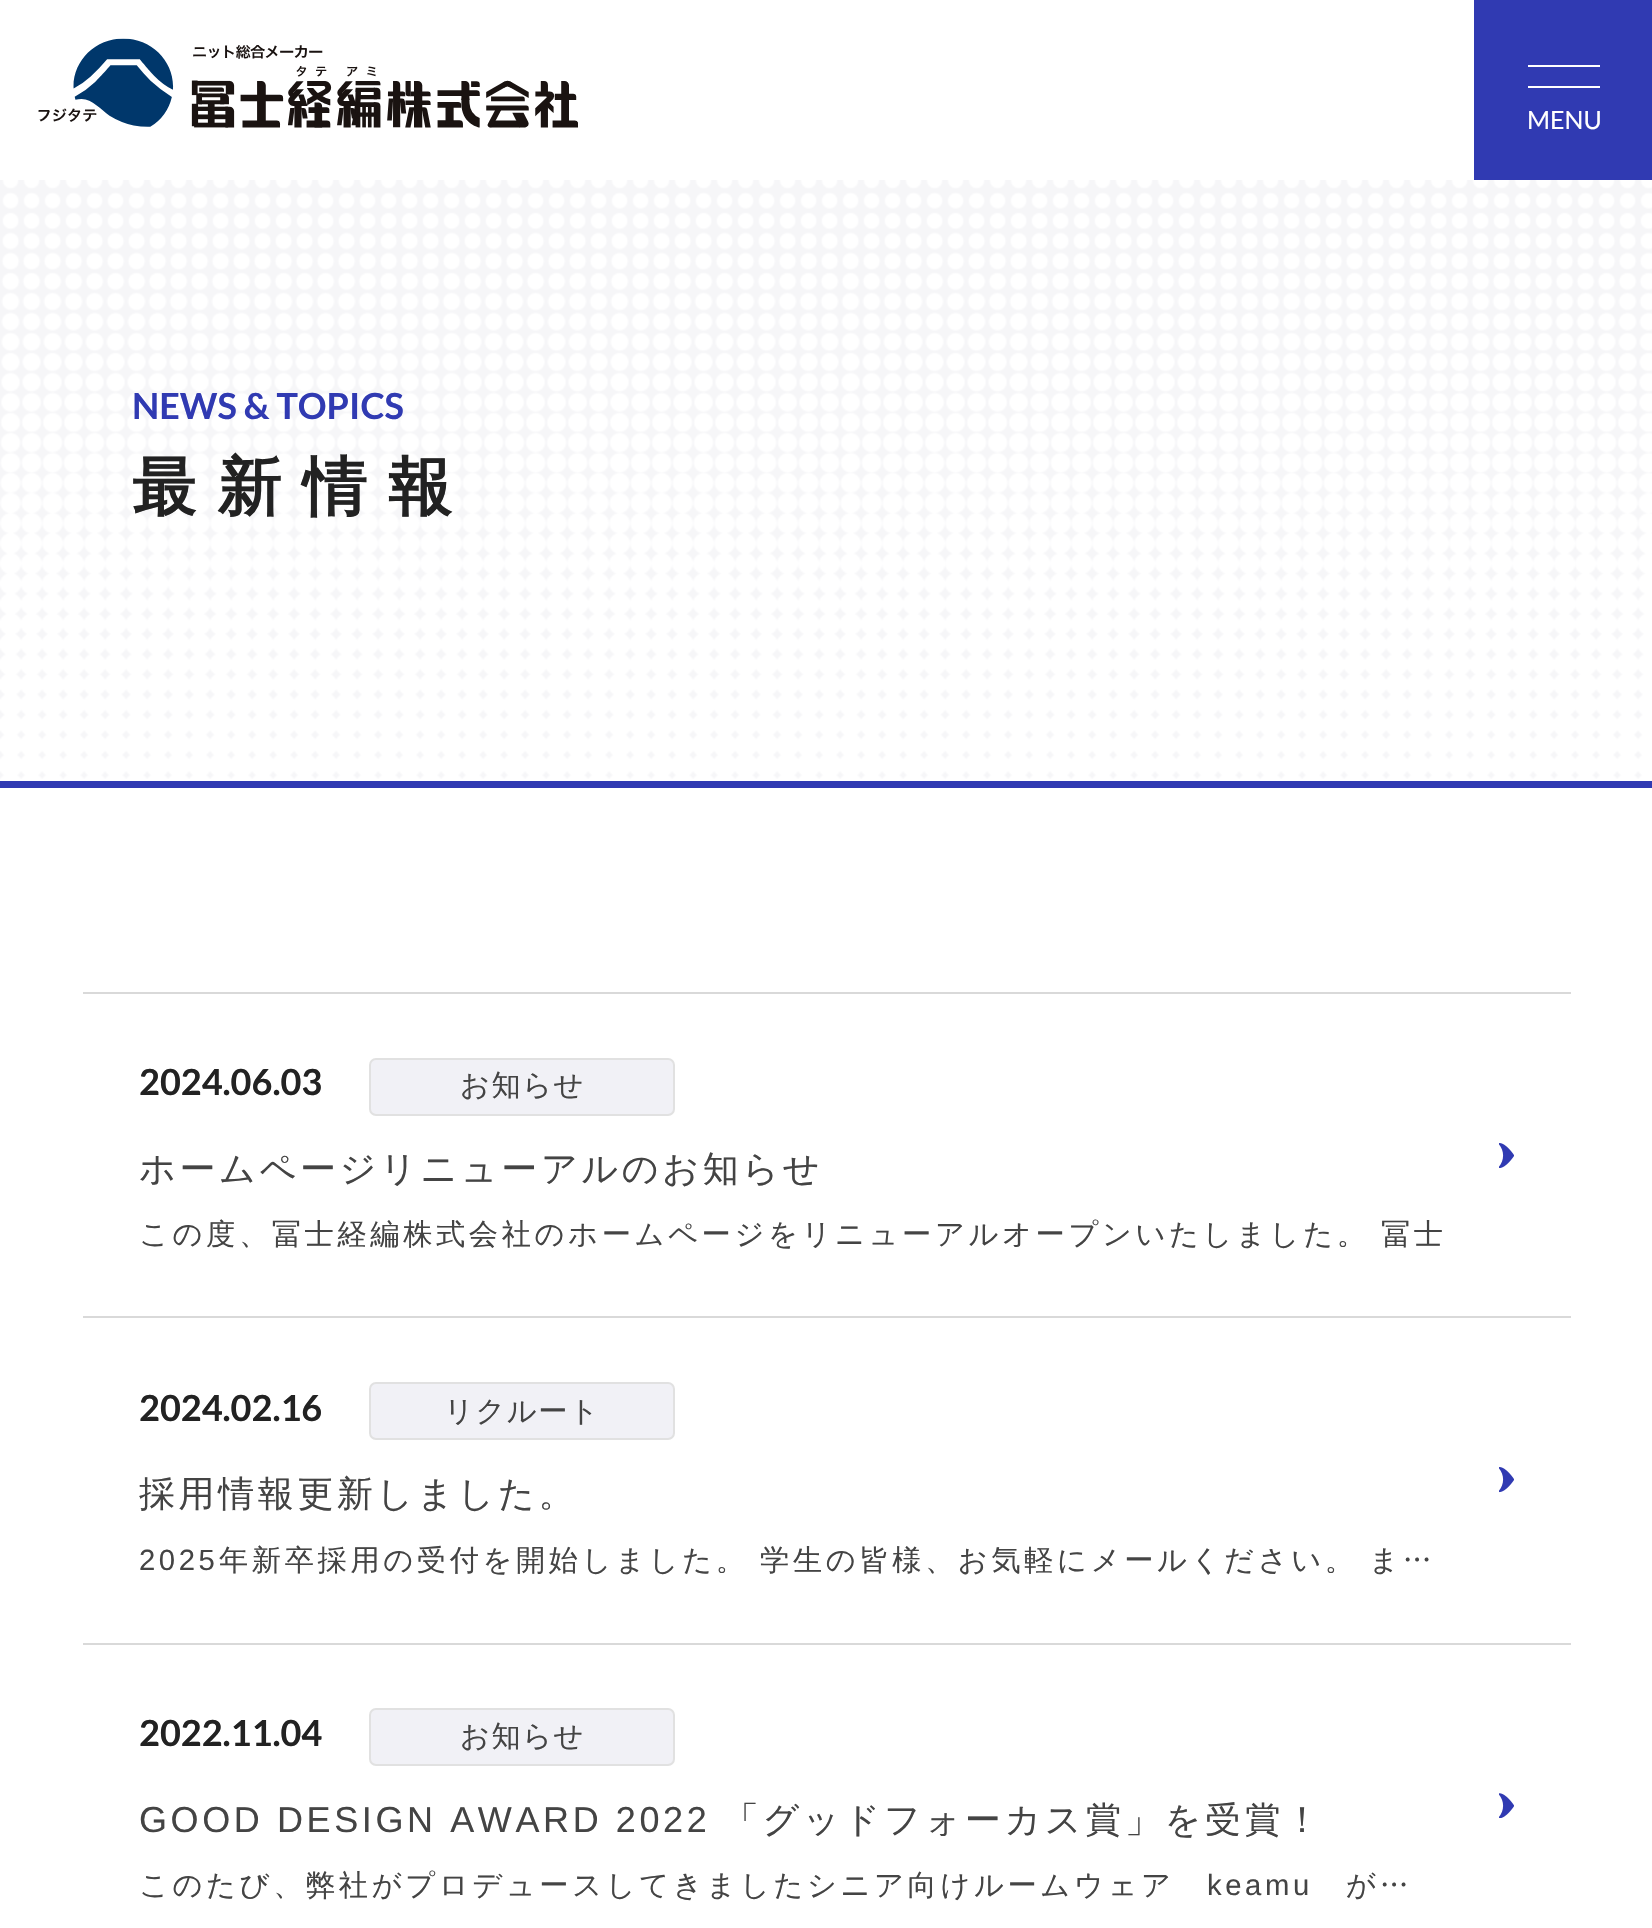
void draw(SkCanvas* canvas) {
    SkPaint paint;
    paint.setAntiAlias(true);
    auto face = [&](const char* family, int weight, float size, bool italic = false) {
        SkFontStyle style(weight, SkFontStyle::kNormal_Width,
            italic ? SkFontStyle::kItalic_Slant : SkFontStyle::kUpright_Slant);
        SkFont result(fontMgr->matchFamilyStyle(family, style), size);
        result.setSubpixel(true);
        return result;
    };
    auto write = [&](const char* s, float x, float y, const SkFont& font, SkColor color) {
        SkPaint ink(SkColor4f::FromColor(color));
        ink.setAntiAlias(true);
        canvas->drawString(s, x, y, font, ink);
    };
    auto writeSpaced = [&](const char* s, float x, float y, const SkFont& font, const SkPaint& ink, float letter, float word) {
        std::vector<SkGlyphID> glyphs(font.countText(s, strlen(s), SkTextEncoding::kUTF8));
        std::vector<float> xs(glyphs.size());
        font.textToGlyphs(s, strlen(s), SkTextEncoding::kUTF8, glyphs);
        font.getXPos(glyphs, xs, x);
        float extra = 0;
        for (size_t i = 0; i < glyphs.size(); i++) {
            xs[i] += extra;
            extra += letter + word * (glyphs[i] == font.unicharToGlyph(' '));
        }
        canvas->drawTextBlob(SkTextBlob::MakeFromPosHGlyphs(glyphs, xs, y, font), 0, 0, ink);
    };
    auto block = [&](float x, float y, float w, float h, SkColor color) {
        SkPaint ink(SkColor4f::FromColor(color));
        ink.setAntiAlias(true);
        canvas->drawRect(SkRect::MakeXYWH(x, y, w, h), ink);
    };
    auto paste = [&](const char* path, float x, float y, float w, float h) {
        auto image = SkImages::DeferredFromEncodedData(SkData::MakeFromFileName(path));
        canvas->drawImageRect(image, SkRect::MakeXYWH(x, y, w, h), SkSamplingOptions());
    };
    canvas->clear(SK_ColorWHITE);
    paste("pic1.png", 38, 38, 540, 90);
    block(1474, 0, 178, 180, SkColorSetRGB(48, 58, 178));
    block(1528, 65, 72, 2, SK_ColorWHITE);
    block(1528, 86, 72, 2, SK_ColorWHITE);
    auto kFont1 = face("Lato", 400, 25);
    write("MENU", 1527, 129, kFont1, SK_ColorWHITE);
    block(0, 180, 1652, 601, SkColorSetRGB(246, 246, 248));
    paste("pic2.png", 0, 180, 1652, 601);
    auto kFont2 = face("Lato", 700, 36);
    write("NEWS & TOPICS", 132, 419, kFont2, SkColorSetRGB(48, 58, 178));
    auto kFont3 = face("WenQuanYi Zen Hei", 700, 64.25f);
    paint.setColor(SkColorSetRGB(34, 34, 34));
    writeSpaced("最新情報", 132, 509, kFont3, paint, 21, 0);
    block(0, 781, 1652, 7, SkColorSetRGB(48, 58, 178));
    block(83, 992, 1488, 2, SkColorSetRGB(217, 217, 217));
    write("2024.06.03", 139, 1095, kFont2, SkColorSetRGB(34, 34, 34));
    paint.setColor(SkColorSetRGB(241, 241, 246));
    canvas->drawRoundRect(SkRect::MakeXYWH(370, 1059, 304, 56), 6, 6, paint);
    paint.setStyle(SkPaint::kStroke_Style);
    paint.setStrokeWidth(2);
    paint.setColor(SkColorSetRGB(225, 225, 225));
    canvas->drawRoundRect(SkRect::MakeXYWH(370, 1059, 304, 56), 6, 6, paint);
    auto kFont4 = face("WenQuanYi Zen Hei", 500, 29.25f);
    paint.setStyle(SkPaint::kFill_Style);
    paint.setColor(SkColorSetRGB(68, 68, 68));
    writeSpaced("お知らせ", 460, 1095, kFont4, paint, 1.5f, 0);
    auto kFont5 = face("WenQuanYi Zen Hei", 500, 36);
    writeSpaced("ホームページリニューアルのお知らせ", 139, 1181, kFont5, paint, 3.6f, 0);
    writeSpaced("この度、冨士経編株式会社のホームページをリニューアルオープンいたしました。 冨士", 139, 1244, kFont4, paint, 3.6f, -1);
    paste("pic3.png", 1499, 1143, 15, 25);
    block(83, 1316, 1488, 2, SkColorSetRGB(217, 217, 217));
    write("2024.02.16", 139, 1421, kFont2, SkColorSetRGB(34, 34, 34));
    paint.setColor(SkColorSetRGB(241, 241, 246));
    canvas->drawRoundRect(SkRect::MakeXYWH(370, 1383, 304, 56), 6, 6, paint);
    paint.setStyle(SkPaint::kStroke_Style);
    paint.setColor(SkColorSetRGB(225, 225, 225));
    canvas->drawRoundRect(SkRect::MakeXYWH(370, 1383, 304, 56), 6, 6, paint);
    paint.setStyle(SkPaint::kFill_Style);
    paint.setColor(SkColorSetRGB(68, 68, 68));
    writeSpaced("リクルート", 444, 1421, kFont4, paint, 1.5f, 0);
    writeSpaced("採用情報更新しました。", 139, 1506, kFont5, paint, 3.6f, 0);
    auto kFont6 = face("Liberation Sans", 400, 29.25f);
    writeSpaced("2025", 139, 1570, kFont6, paint, 3.6f, 0);
    writeSpaced("年新卒採用の受付を開始しました。 学生の皆様、お気軽にメールください。 ま…", 219, 1570, kFont4, paint, 3.6f, -1);
    paste("pic4.png", 1499, 1467, 15, 26);
    block(83, 1643, 1488, 2, SkColorSetRGB(217, 217, 217));
    write("2022.11.04", 139, 1746, kFont2, SkColorSetRGB(34, 34, 34));
    paint.setColor(SkColorSetRGB(241, 241, 246));
    canvas->drawRoundRect(SkRect::MakeXYWH(370, 1709, 304, 56), 6, 6, paint);
    paint.setStyle(SkPaint::kStroke_Style);
    paint.setColor(SkColorSetRGB(225, 225, 225));
    canvas->drawRoundRect(SkRect::MakeXYWH(370, 1709, 304, 56), 6, 6, paint);
    paint.setStyle(SkPaint::kFill_Style);
    paint.setColor(SkColorSetRGB(68, 68, 68));
    writeSpaced("お知らせ", 460, 1746, kFont4, paint, 1.5f, 0);
    auto kFont7 = face("Liberation Sans", 400, 36);
    writeSpaced("GOOD DESIGN AWARD 2022", 139, 1832, kFont7, paint, 3.6f, 0);
    writeSpaced("「グッドフォーカス賞」を受賞！", 723, 1832, kFont5, paint, 3.6f, 0);
    writeSpaced("このたび、弊社がプロデュースしてきましたシニア向けルームウェア", 139, 1895, kFont4, paint, 3.6f, 0);
    writeSpaced("keamu", 1207, 1895, kFont6, paint, 3.6f, 0);
    writeSpaced("が…", 1346, 1895, kFont4, paint, 3.6f, 0);
    paste("pic5.png", 1499, 1793, 15, 25);
}
